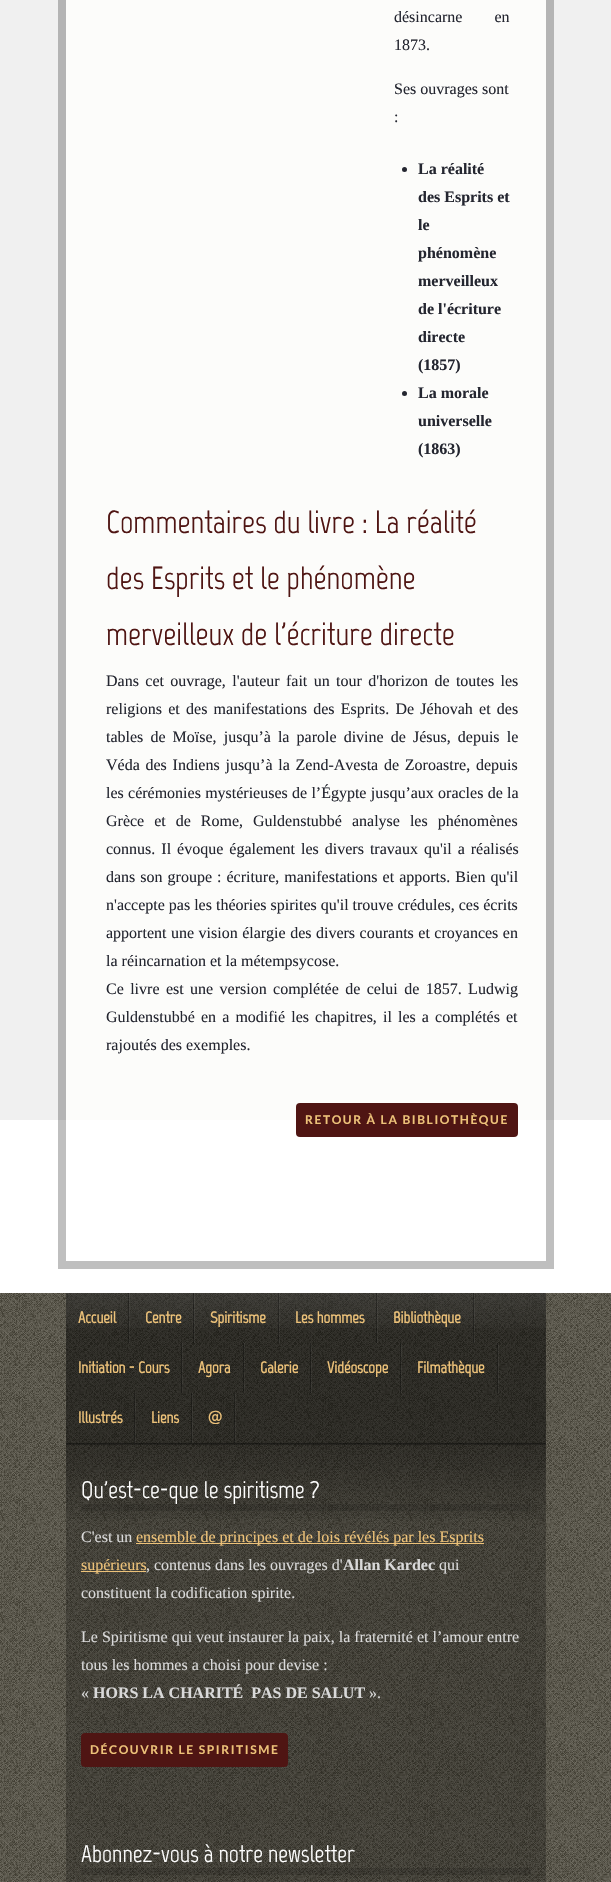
void draw(SkCanvas* canvas) {
    SkPaint paint;
    paint.setAntiAlias(true);
    auto face = [&](const char* family, int weight, float size, bool italic = false) {
        SkFontStyle style(weight, SkFontStyle::kNormal_Width,
            italic ? SkFontStyle::kItalic_Slant : SkFontStyle::kUpright_Slant);
        SkFont result(fontMgr->matchFamilyStyle(family, style), size);
        result.setSubpixel(true);
        return result;
    };
    auto write = [&](const char* s, float x, float y, const SkFont& font, SkColor color) {
        SkPaint ink(SkColor4f::FromColor(color));
        ink.setAntiAlias(true);
        canvas->drawString(s, x, y, font, ink);
    };
    auto writeSpaced = [&](const char* s, float x, float y, const SkFont& font, const SkPaint& ink, float letter, float word) {
        std::vector<SkGlyphID> glyphs(font.countText(s, strlen(s), SkTextEncoding::kUTF8));
        std::vector<float> xs(glyphs.size());
        font.textToGlyphs(s, strlen(s), SkTextEncoding::kUTF8, glyphs);
        font.getXPos(glyphs, xs, x);
        float extra = 0;
        for (size_t i = 0; i < glyphs.size(); i++) {
            xs[i] += extra;
            extra += letter + word * (glyphs[i] == font.unicharToGlyph(' '));
        }
        canvas->drawTextBlob(SkTextBlob::MakeFromPosHGlyphs(glyphs, xs, y, font), 0, 0, ink);
    };
    auto block = [&](float x, float y, float w, float h, SkColor color) {
        SkPaint ink(SkColor4f::FromColor(color));
        ink.setAntiAlias(true);
        canvas->drawRect(SkRect::MakeXYWH(x, y, w, h), ink);
    };
    auto card = [&](float x, float y, float w, float h, float radius, SkColor color) {
        SkPaint ink(SkColor4f::FromColor(color));
        ink.setAntiAlias(true);
        canvas->drawRoundRect(SkRect::MakeXYWH(x, y, w, h), radius, radius, ink);
    };
    auto paste = [&](const char* path, float x, float y, float w, float h) {
        auto image = SkImages::DeferredFromEncodedData(SkData::MakeFromFileName(path));
        canvas->drawImageRect(image, SkRect::MakeXYWH(x, y, w, h), SkSamplingOptions());
    };
    canvas->clear(SK_ColorWHITE);
    block(0, 0, 611, 1120, SkColorSetRGB(240, 240, 240));
    block(66, 0, 480, 1120, SkColorSetRGB(252, 252, 250));
    paint.setStyle(SkPaint::kStroke_Style);
    paint.setStrokeWidth(8);
    paint.setColor(SkColorSetARGB(64, 0, 0, 0));
    canvas->drawRect(SkRect::MakeXYWH(62, -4, 488, 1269), paint);
    auto kFont1 = face("Liberation Serif", 400, 16);
    paint.setStyle(SkPaint::kFill_Style);
    paint.setColor(SkColorSetRGB(36, 38, 48));
    writeSpaced("désincarne en", 394, 22, kFont1, paint, 0, 28);
    write("1873.", 394, 50, kFont1, SkColorSetRGB(36, 38, 48));
    write("Ses ouvrages sont", 394, 94, kFont1, SkColorSetRGB(36, 38, 48));
    write(":", 394, 122, kFont1, SkColorSetRGB(36, 38, 48));
    canvas->drawCircle(404.5f, 169.5f, 2.5f, paint);
    auto kFont2 = face("Liberation Serif", 700, 16);
    write("La réalité", 418, 174, kFont2, SkColorSetRGB(36, 38, 48));
    write("des Esprits et", 418, 202, kFont2, SkColorSetRGB(36, 38, 48));
    write("le", 418, 230, kFont2, SkColorSetRGB(36, 38, 48));
    write("phénomène", 418, 258, kFont2, SkColorSetRGB(36, 38, 48));
    write("merveilleux", 418, 286, kFont2, SkColorSetRGB(36, 38, 48));
    write("de l'écriture", 418, 314, kFont2, SkColorSetRGB(36, 38, 48));
    write("directe", 418, 342, kFont2, SkColorSetRGB(36, 38, 48));
    write("(1857)", 418, 370, kFont2, SkColorSetRGB(36, 38, 48));
    canvas->drawCircle(404.5f, 393.5f, 2.5f, paint);
    write("La morale", 418, 398, kFont2, SkColorSetRGB(36, 38, 48));
    write("universelle", 418, 426, kFont2, SkColorSetRGB(36, 38, 48));
    write("(1863)", 418, 454, kFont2, SkColorSetRGB(36, 38, 48));
    auto kFont3 = face("Marvel", 400, 32);
    write("Commentaires du livre : La réalité", 106, 533, kFont3, SkColorSetRGB(79, 21, 19));
    write("des Esprits et le phénomène", 106, 589, kFont3, SkColorSetRGB(79, 21, 19));
    write("merveilleux de l'écriture directe", 106, 645, kFont3, SkColorSetRGB(79, 21, 19));
    writeSpaced("Dans cet ouvrage, l'auteur fait un tour d'horizon de toutes les", 106, 686, kFont1, paint, 0, 2.4f);
    writeSpaced("religions et des manifestations des Esprits. De Jéhovah et des", 106, 714, kFont1, paint, 0, 2.25f);
    writeSpaced("tables de Moïse, jusqu’à la parole divine de Jésus, depuis le", 106, 742, kFont1, paint, 0, 3.1f);
    writeSpaced("Véda des Indiens jusqu’à la Zend-Avesta de Zoroastre, depuis", 106, 770, kFont1, paint, 0, 1.75f);
    writeSpaced("les cérémonies mystérieuses de l’Égypte jusqu’aux oracles de la", 106, 798, kFont1, paint, 0, 0.25f);
    writeSpaced("Grèce et de Rome, Guldenstubbé analyse les phénomènes", 106, 826, kFont1, paint, 0, 6);
    writeSpaced("connus. Il évoque également les divers travaux qu'il a réalisés", 106, 854, kFont1, paint, 0, 2);
    writeSpaced("dans son groupe : écriture, manifestations et apports. Bien qu'il", 106, 882, kFont1, paint, 0, 1);
    write("n'accepte pas les théories spirites qu'il trouve crédules, ces écrits", 106, 910, kFont1, SkColorSetRGB(36, 38, 48));
    writeSpaced("apportent une vision élargie des divers courants et croyances en", 106, 938, kFont1, paint, 0, 0.5f);
    write("la réincarnation et la métempsycose.", 106, 966, kFont1, SkColorSetRGB(36, 38, 48));
    writeSpaced("Ce livre est une version complétée de celui de 1857. Ludwig", 106, 994, kFont1, paint, 0, 2.4f);
    writeSpaced("Guldenstubbé en a modifié les chapitres, il les a complétés et", 106, 1022, kFont1, paint, 0, 2.1f);
    write("rajoutés des exemples.", 106, 1050, kFont1, SkColorSetRGB(36, 38, 48));
    card(296, 1103, 222, 34, 4, SkColorSetRGB(79, 21, 19));
    auto kFont4 = face("Lato", 700, 12);
    paint.setColor(SkColorSetRGB(237, 194, 121));
    writeSpaced("RETOUR À LA BIBLIOTHÈQUE", 305, 1124, kFont4, paint, 1.6f, 0);
    block(0, 1293, 611, 589, SkColorSetRGB(60, 56, 40));
    paste("pic1.png", 0, 1293, 611, 589);
    block(66, 1293, 480, 151, SkColorSetARGB(128, 0, 0, 0));
    paste("pic2.png", 66, 1293, 480, 35);
    block(66, 1443, 480, 1, SkColorSetARGB(102, 0, 0, 0));
    block(129, 1293, 1, 50, SkColorSetARGB(13, 255, 255, 255));
    block(128, 1293, 1, 50, SkColorSetARGB(77, 0, 0, 0));
    auto kFont5 = face("Marvel", 700, 16);
    write("Accueil", 78, 1323, kFont5, SkColorSetRGB(237, 194, 121));
    block(194, 1293, 1, 50, SkColorSetARGB(13, 255, 255, 255));
    block(193, 1293, 1, 50, SkColorSetARGB(77, 0, 0, 0));
    write("Centre", 145, 1323, kFont5, SkColorSetRGB(237, 194, 121));
    block(279, 1293, 1, 50, SkColorSetARGB(13, 255, 255, 255));
    block(278, 1293, 1, 50, SkColorSetARGB(77, 0, 0, 0));
    write("Spiritisme", 210, 1323, kFont5, SkColorSetRGB(237, 194, 121));
    block(377, 1293, 1, 50, SkColorSetARGB(13, 255, 255, 255));
    block(376, 1293, 1, 50, SkColorSetARGB(77, 0, 0, 0));
    write("Les hommes", 295, 1323, kFont5, SkColorSetRGB(237, 194, 121));
    block(474, 1293, 1, 50, SkColorSetARGB(13, 255, 255, 255));
    block(473, 1293, 1, 50, SkColorSetARGB(77, 0, 0, 0));
    write("Bibliothèque", 393, 1323, kFont5, SkColorSetRGB(237, 194, 121));
    block(182, 1343, 1, 50, SkColorSetARGB(13, 255, 255, 255));
    block(181, 1343, 1, 50, SkColorSetARGB(77, 0, 0, 0));
    write("Initiation - Cours", 78, 1373, kFont5, SkColorSetRGB(237, 194, 121));
    block(244, 1343, 1, 50, SkColorSetARGB(13, 255, 255, 255));
    block(243, 1343, 1, 50, SkColorSetARGB(77, 0, 0, 0));
    write("Agora", 198, 1373, kFont5, SkColorSetRGB(237, 194, 121));
    block(311, 1343, 1, 50, SkColorSetARGB(13, 255, 255, 255));
    block(310, 1343, 1, 50, SkColorSetARGB(77, 0, 0, 0));
    write("Galerie", 260, 1373, kFont5, SkColorSetRGB(237, 194, 121));
    block(401, 1343, 1, 50, SkColorSetARGB(13, 255, 255, 255));
    block(400, 1343, 1, 50, SkColorSetARGB(77, 0, 0, 0));
    write("Vidéoscope", 327, 1373, kFont5, SkColorSetRGB(237, 194, 121));
    block(498, 1343, 1, 50, SkColorSetARGB(13, 255, 255, 255));
    block(497, 1343, 1, 50, SkColorSetARGB(77, 0, 0, 0));
    write("Filmathèque", 417, 1373, kFont5, SkColorSetRGB(237, 194, 121));
    block(135, 1393, 1, 50, SkColorSetARGB(13, 255, 255, 255));
    block(134, 1393, 1, 50, SkColorSetARGB(77, 0, 0, 0));
    write("Illustrés", 78, 1423, kFont5, SkColorSetRGB(237, 194, 121));
    block(192, 1393, 1, 50, SkColorSetARGB(13, 255, 255, 255));
    block(191, 1393, 1, 50, SkColorSetARGB(77, 0, 0, 0));
    write("Liens", 151, 1423, kFont5, SkColorSetRGB(237, 194, 121));
    block(235, 1393, 1, 50, SkColorSetARGB(13, 255, 255, 255));
    block(234, 1393, 1, 50, SkColorSetARGB(77, 0, 0, 0));
    write("@", 208, 1423, kFont5, SkColorSetRGB(237, 194, 121));
    block(66, 1444, 480, 438, SkColorSetARGB(64, 0, 0, 0));
    paste("pic3.png", 66, 1444, 480, 75);
    block(81, 1504, 450, 7, SkColorSetARGB(31, 0, 0, 0));
    auto kFont6 = face("Marvel", 400, 24);
    write("Qu'est-ce-que le spiritisme ?", 81, 1498, kFont6, SK_ColorWHITE);
    write("C'est un", 81, 1542, kFont1, SkColorSetRGB(217, 217, 217));
    block(136, 1543, 348, 1, SkColorSetRGB(237, 194, 121));
    write("ensemble de principes et de lois révélés par les Esprits", 136, 1542, kFont1, SkColorSetRGB(237, 194, 121));
    block(81, 1571, 65, 1, SkColorSetRGB(237, 194, 121));
    write("supérieurs", 81, 1570, kFont1, SkColorSetRGB(237, 194, 121));
    write(", contenus dans les ouvrages d'", 146, 1570, kFont1, SkColorSetRGB(217, 217, 217));
    write("Allan Kardec", 343, 1570, kFont2, SkColorSetRGB(217, 217, 217));
    write("qui", 439, 1570, kFont1, SkColorSetRGB(217, 217, 217));
    write("constituent la codification spirite.", 81, 1598, kFont1, SkColorSetRGB(217, 217, 217));
    write("Le Spiritisme qui veut instaurer la paix, la fraternité et l’amour entre", 81, 1642, kFont1, SkColorSetRGB(217, 217, 217));
    write("tous les hommes a choisi pour devise :", 81, 1670, kFont1, SkColorSetRGB(217, 217, 217));
    write("«", 81, 1698, kFont1, SkColorSetRGB(217, 217, 217));
    write("HORS LA CHARITÉ  PAS DE SALUT", 93, 1698, kFont2, SkColorSetRGB(217, 217, 217));
    write("».", 369, 1698, kFont1, SkColorSetRGB(217, 217, 217));
    card(81, 1733, 207, 34, 4, SkColorSetRGB(79, 21, 19));
    writeSpaced("DÉCOUVRIR LE SPIRITISME", 90, 1754, kFont4, paint, 1.6f, 0);
    block(81, 1868, 450, 7, SkColorSetARGB(31, 0, 0, 0));
    write("Abonnez-vous à notre newsletter", 81, 1862, kFont6, SK_ColorWHITE);
}
